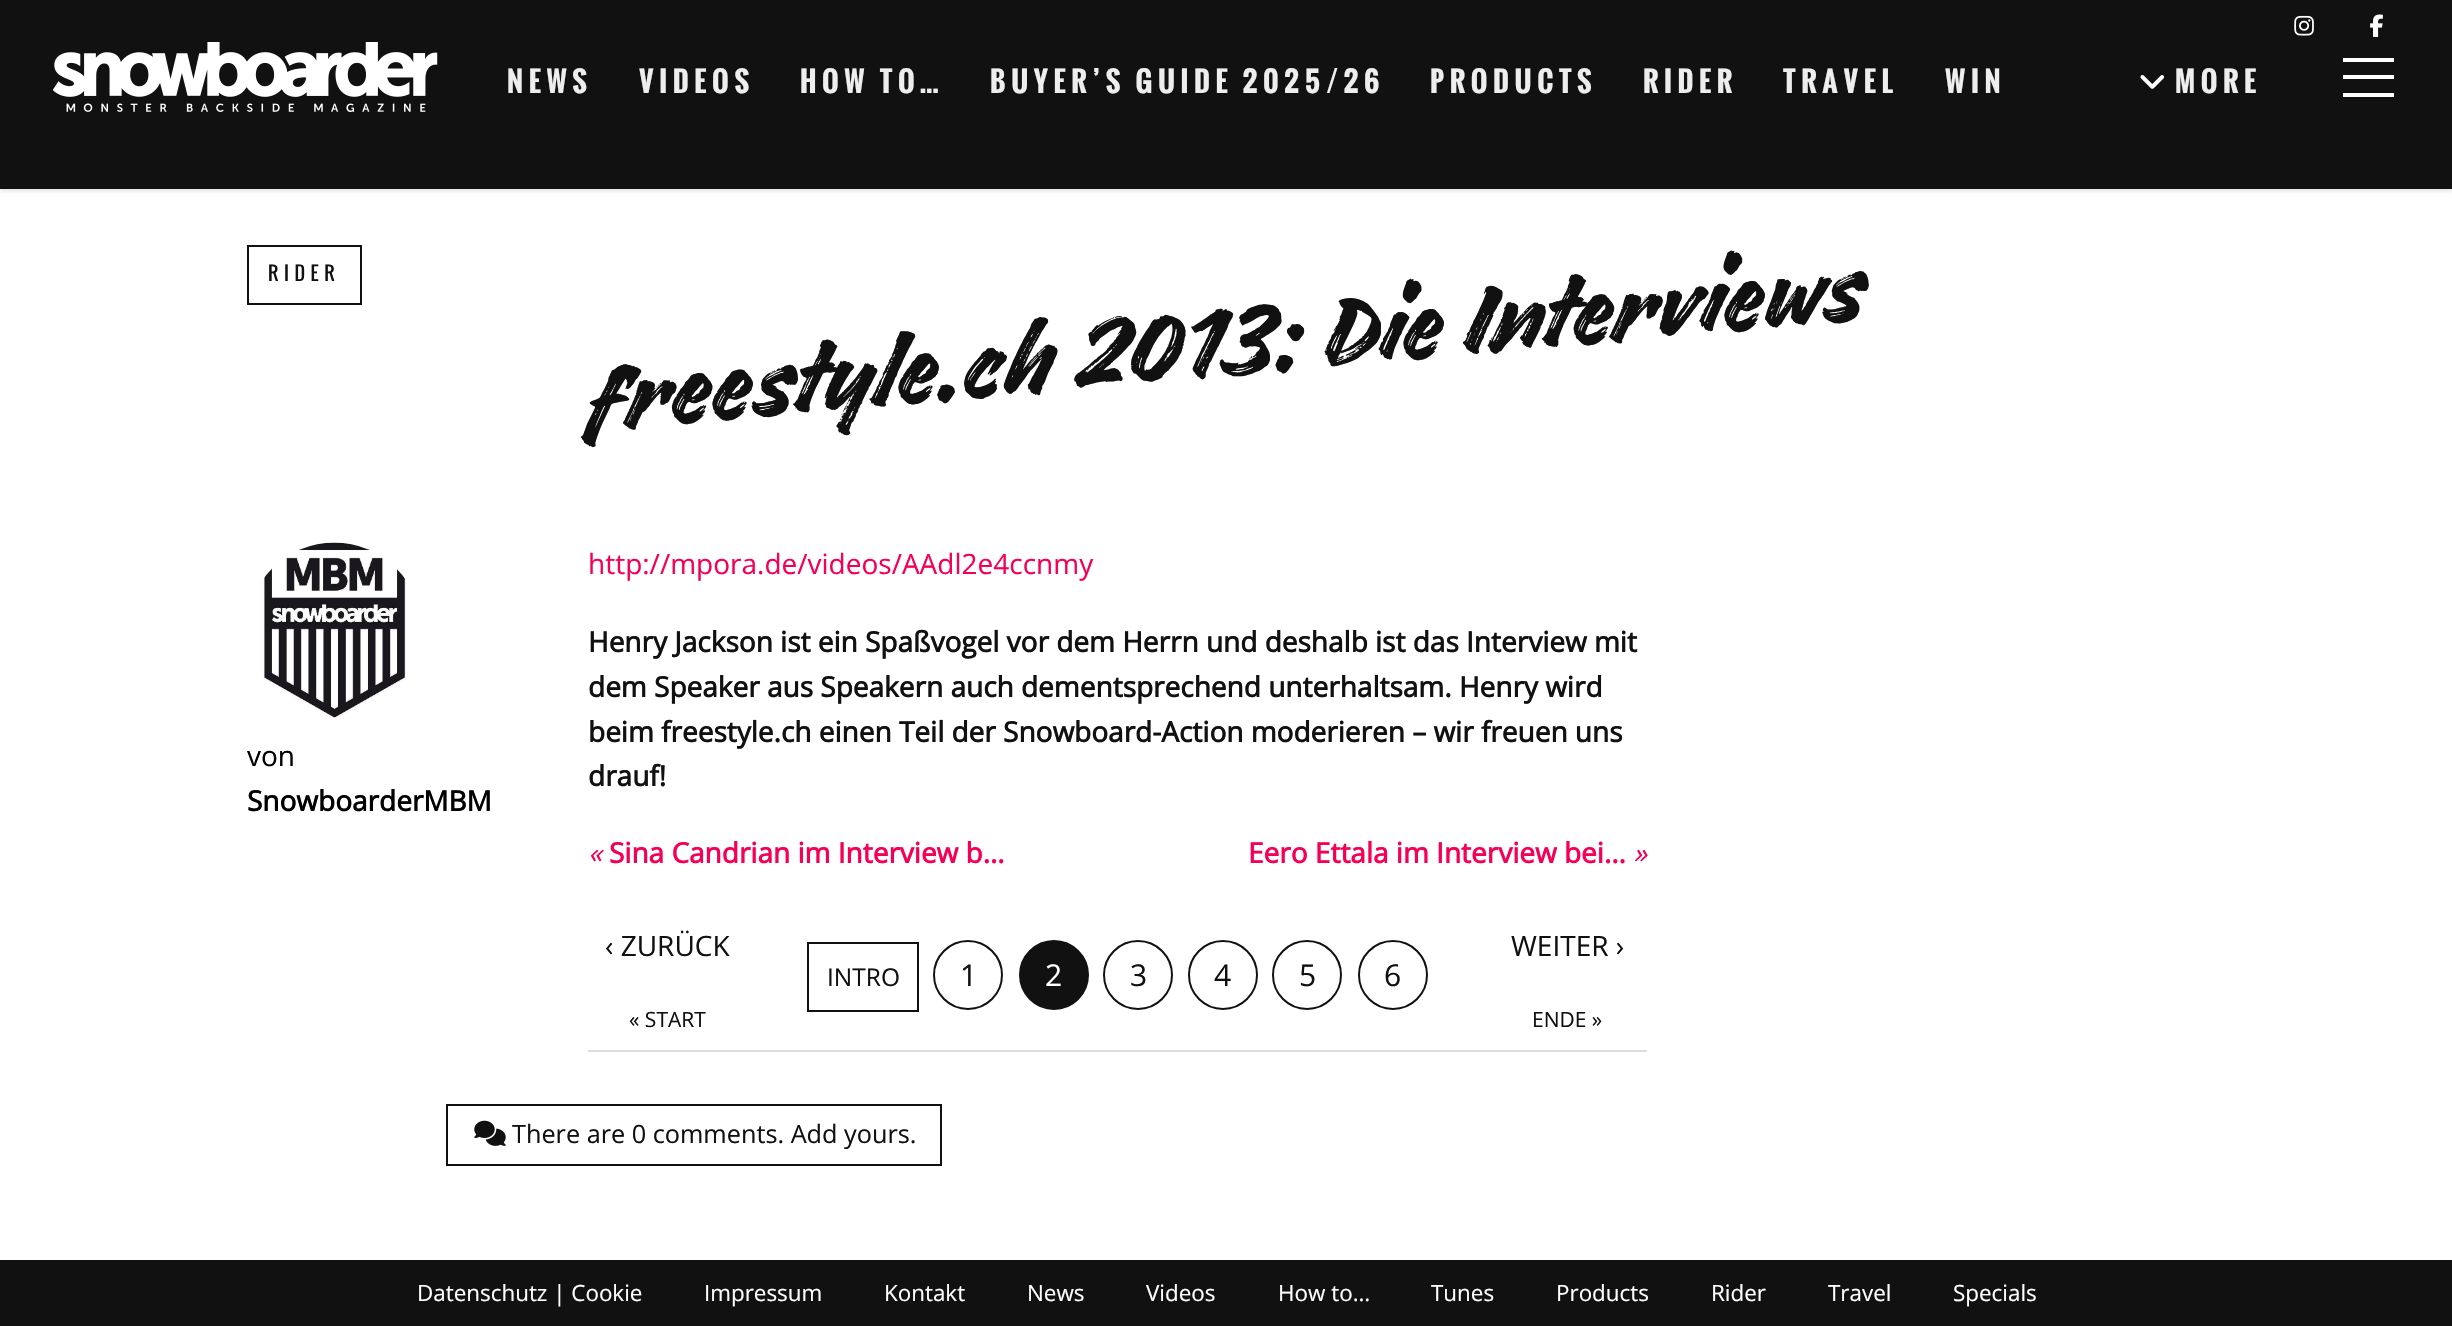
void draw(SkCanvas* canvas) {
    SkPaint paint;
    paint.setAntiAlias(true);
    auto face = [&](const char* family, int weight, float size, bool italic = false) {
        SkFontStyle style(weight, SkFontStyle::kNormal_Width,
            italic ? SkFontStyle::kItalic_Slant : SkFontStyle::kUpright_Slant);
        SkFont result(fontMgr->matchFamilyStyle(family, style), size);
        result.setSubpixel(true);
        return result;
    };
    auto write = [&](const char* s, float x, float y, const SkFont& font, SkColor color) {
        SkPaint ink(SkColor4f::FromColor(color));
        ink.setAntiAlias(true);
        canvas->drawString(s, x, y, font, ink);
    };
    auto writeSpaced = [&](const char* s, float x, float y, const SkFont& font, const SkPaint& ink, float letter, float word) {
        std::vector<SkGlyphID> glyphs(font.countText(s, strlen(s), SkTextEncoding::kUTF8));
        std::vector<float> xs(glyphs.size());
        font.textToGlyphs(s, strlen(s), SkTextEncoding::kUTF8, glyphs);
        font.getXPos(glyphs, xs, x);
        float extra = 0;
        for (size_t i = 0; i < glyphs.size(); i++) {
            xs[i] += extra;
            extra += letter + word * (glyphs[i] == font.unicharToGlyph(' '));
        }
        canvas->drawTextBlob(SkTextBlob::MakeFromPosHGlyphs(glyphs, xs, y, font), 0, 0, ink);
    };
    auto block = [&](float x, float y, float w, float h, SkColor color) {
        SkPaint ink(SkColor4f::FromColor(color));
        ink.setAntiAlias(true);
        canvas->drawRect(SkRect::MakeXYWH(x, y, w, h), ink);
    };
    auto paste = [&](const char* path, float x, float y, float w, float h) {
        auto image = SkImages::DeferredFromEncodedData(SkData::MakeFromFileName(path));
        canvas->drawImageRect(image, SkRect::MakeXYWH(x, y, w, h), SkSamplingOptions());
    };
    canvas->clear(SK_ColorWHITE);
    paint.setColor(SkColorSetARGB(26, 0, 0, 0));
    paint.setMaskFilter(SkMaskFilter::MakeBlur(kNormal_SkBlurStyle, 2));
    canvas->drawRect(SkRect::MakeXYWH(0, 2, 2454, 189), paint);
    paint.setMaskFilter(nullptr);
    block(0, 0, 2452, 189, SkColorSetRGB(17, 17, 17));
    paste("pic1.png", 2294, 15, 20, 21);
    paste("pic2.png", 2370, 14, 13, 23);
    paste("pic3.png", 53, 42, 385, 70);
    auto kFont1 = face("Oswald", 700, 28);
    paint.setColor(SkColorSetRGB(238, 238, 238));
    writeSpaced("NEWS", 507, 93, kFont1, paint, 5.6f, 0);
    writeSpaced("VIDEOS", 639, 93, kFont1, paint, 5.6f, 0);
    writeSpaced("HOW TO", 800, 93, kFont1, paint, 5.6f, 0);
    auto kFont2 = face("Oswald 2", 700, 28);
    writeSpaced("…", 920, 93, kFont2, paint, 5.6f, 0);
    writeSpaced("BUYER’S GUIDE 2025/26", 990, 93, kFont1, paint, 5.6f, 0);
    writeSpaced("PRODUCTS", 1430, 93, kFont1, paint, 5.6f, 0);
    writeSpaced("RIDER", 1643, 93, kFont1, paint, 5.6f, 0);
    writeSpaced("TRAVEL", 1783, 93, kFont1, paint, 5.6f, 0);
    writeSpaced("WIN", 1945, 93, kFont1, paint, 5.6f, 0);
    paste("pic4.png", 2140, 75, 25, 14);
    writeSpaced("MORE", 2175, 93, kFont1, paint, 5.6f, 0);
    block(2343, 75, 51, 4, SK_ColorWHITE);
    block(2343, 58, 51, 4, SK_ColorWHITE);
    block(2343, 93, 51, 4, SK_ColorWHITE);
    paint.setStyle(SkPaint::kStroke_Style);
    paint.setStrokeWidth(2);
    paint.setColor(SkColorSetRGB(17, 17, 17));
    canvas->drawRect(SkRect::MakeXYWH(248, 246, 113, 58), paint);
    auto kFont3 = face("Oswald", 400, 19);
    paint.setStyle(SkPaint::kFill_Style);
    writeSpaced("RIDER", 268, 281, kFont3, paint, 5.6f, 0);
    auto kFont4 = face("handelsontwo", 100, 112);
    canvas->save();
    canvas->rotate(-5, 585, 431);
    writeSpaced("freestyle.ch 2013: Die Interviews", 585, 431, kFont4, paint, 0, 2);
    canvas->restore();
    paste("pic5.png", 262, 542, 144, 176);
    auto kFont5 = face("Open Sans", 400, 28);
    write("von", 247, 766, kFont5, SK_ColorBLACK);
    auto kFont6 = face("Open Sans", 700, 28);
    write("SnowboarderMBM", 247, 811, kFont6, SK_ColorBLACK);
    write("http://mpora.de/videos/AAdl2e4ccnmy", 588, 574, kFont5, SkColorSetRGB(245, 0, 87));
    write("Henry Jackson ist ein Spaßvogel vor dem Herrn und deshalb ist das Interview mit", 588, 652, kFont6, SkColorSetRGB(17, 17, 17));
    write("dem Speaker aus Speakern auch dementsprechend unterhaltsam. Henry wird", 588, 697, kFont6, SkColorSetRGB(17, 17, 17));
    write("beim freestyle.ch einen Teil der Snowboard-Action moderieren – wir freuen uns", 588, 742, kFont6, SkColorSetRGB(17, 17, 17));
    write("drauf!", 588, 786, kFont6, SkColorSetRGB(17, 17, 17));
    auto kFont7 = face("Open Sans", 400, 28, true);
    write("«", 588, 863, kFont7, SkColorSetRGB(245, 0, 87));
    write("Sina Candrian im Interview b…", 609, 863, kFont6, SkColorSetRGB(245, 0, 87));
    write("Eero Ettala im Interview bei…", 1248, 863, kFont6, SkColorSetRGB(245, 0, 87));
    write("»", 1633, 863, kFont7, SkColorSetRGB(245, 0, 87));
    block(588, 1050, 1059, 2, SkColorSetRGB(221, 221, 221));
    write("‹ ZURÜCK", 605, 956, kFont5, SkColorSetRGB(17, 17, 17));
    auto kFont8 = face("Open Sans", 400, 21);
    write("« START", 629, 1027, kFont8, SkColorSetRGB(17, 17, 17));
    paint.setStyle(SkPaint::kStroke_Style);
    canvas->drawRect(SkRect::MakeXYWH(808, 943, 110, 68), paint);
    auto kFont9 = face("Open Sans", 400, 24.5f);
    write("INTRO", 827, 986, kFont9, SkColorSetRGB(17, 17, 17));
    canvas->drawCircle(968, 975, 34, paint);
    auto kFont10 = face("Open Sans", 400, 30);
    write("1", 960, 986, kFont10, SkColorSetRGB(17, 17, 17));
    paint.setStyle(SkPaint::kFill_Style);
    canvas->drawCircle(1054, 975, 34, paint);
    paint.setStyle(SkPaint::kStroke_Style);
    canvas->drawCircle(1054, 975, 34, paint);
    write("2", 1045, 986, kFont10, SK_ColorWHITE);
    canvas->drawCircle(1138, 975, 34, paint);
    write("3", 1130, 986, kFont10, SkColorSetRGB(17, 17, 17));
    canvas->drawCircle(1223, 975, 34, paint);
    write("4", 1214, 986, kFont10, SkColorSetRGB(17, 17, 17));
    canvas->drawCircle(1307, 975, 34, paint);
    write("5", 1299, 986, kFont10, SkColorSetRGB(17, 17, 17));
    canvas->drawCircle(1393, 975, 34, paint);
    write("6", 1384, 986, kFont10, SkColorSetRGB(17, 17, 17));
    write("WEITER ›", 1511, 956, kFont5, SkColorSetRGB(17, 17, 17));
    write("ENDE »", 1532, 1027, kFont8, SkColorSetRGB(17, 17, 17));
    canvas->drawRect(SkRect::MakeXYWH(447, 1105, 494, 60), paint);
    paste("pic6.png", 474, 1120, 32, 26);
    auto kFont11 = face("Open Sans", 400, 25.25f);
    write("There are 0 comments. Add yours.", 512, 1143, kFont11, SkColorSetRGB(17, 17, 17));
    block(0, 1260, 2452, 66, SkColorSetRGB(17, 17, 17));
    auto kFont12 = face("Open Sans", 400, 22.4f);
    write("Datenschutz | Cookie", 417, 1301, kFont12, SK_ColorWHITE);
    write("Impressum", 704, 1301, kFont12, SK_ColorWHITE);
    write("Kontakt", 884, 1301, kFont12, SK_ColorWHITE);
    write("News", 1027, 1301, kFont12, SK_ColorWHITE);
    write("Videos", 1146, 1301, kFont12, SK_ColorWHITE);
    write("How to…", 1278, 1301, kFont12, SK_ColorWHITE);
    write("Tunes", 1431, 1301, kFont12, SK_ColorWHITE);
    write("Products", 1556, 1301, kFont12, SK_ColorWHITE);
    write("Rider", 1711, 1301, kFont12, SK_ColorWHITE);
    write("Travel", 1828, 1301, kFont12, SK_ColorWHITE);
    write("Specials", 1953, 1301, kFont12, SK_ColorWHITE);
}
